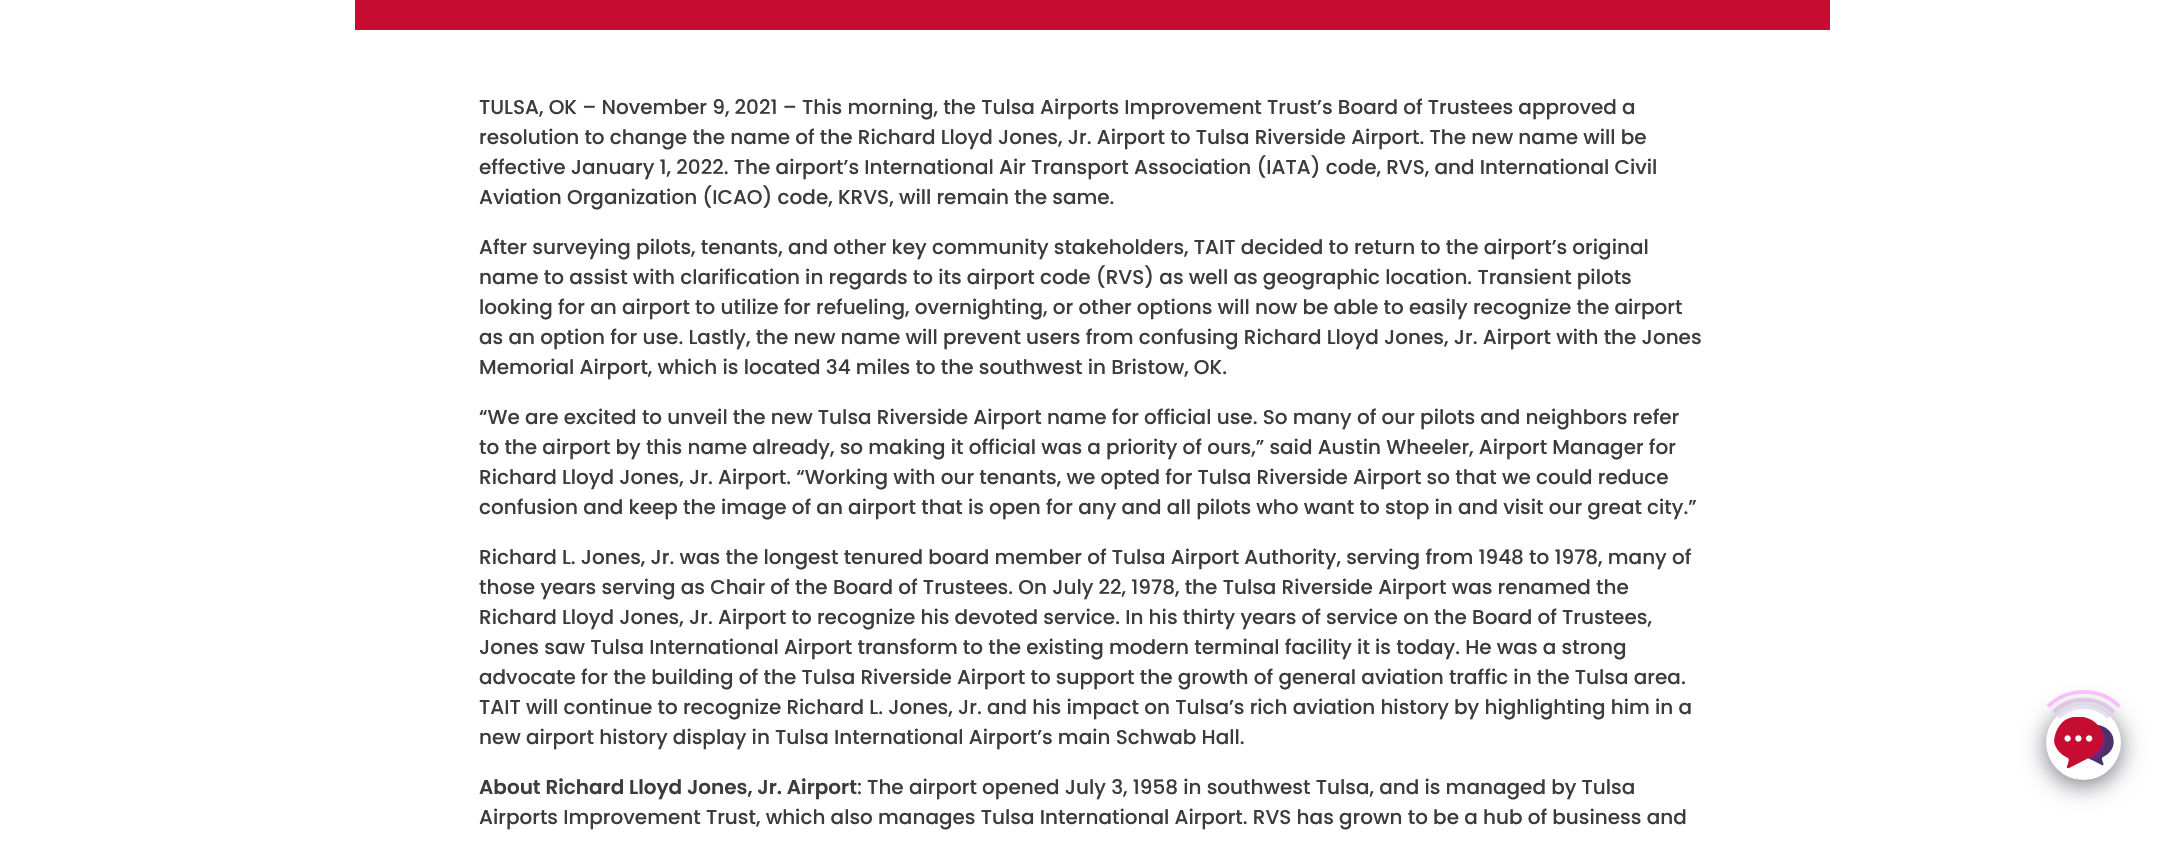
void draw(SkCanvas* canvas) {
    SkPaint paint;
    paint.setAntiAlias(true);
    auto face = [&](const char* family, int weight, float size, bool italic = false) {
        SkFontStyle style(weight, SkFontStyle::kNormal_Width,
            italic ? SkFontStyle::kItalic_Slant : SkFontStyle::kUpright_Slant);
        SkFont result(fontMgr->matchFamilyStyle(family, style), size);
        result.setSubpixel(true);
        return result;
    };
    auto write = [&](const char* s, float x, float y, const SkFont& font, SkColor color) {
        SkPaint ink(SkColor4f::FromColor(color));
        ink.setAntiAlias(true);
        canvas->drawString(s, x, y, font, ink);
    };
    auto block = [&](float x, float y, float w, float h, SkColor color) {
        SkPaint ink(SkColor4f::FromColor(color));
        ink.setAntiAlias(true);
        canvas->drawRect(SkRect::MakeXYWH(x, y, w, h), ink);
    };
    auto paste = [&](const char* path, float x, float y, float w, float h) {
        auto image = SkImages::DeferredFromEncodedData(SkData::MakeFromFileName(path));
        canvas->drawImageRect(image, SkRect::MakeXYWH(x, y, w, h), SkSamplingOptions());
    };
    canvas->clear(SK_ColorWHITE);
    block(355, 0, 1475, 30, SkColorSetRGB(198, 12, 48));
    auto kFont1 = face("Poppins", 500, 20);
    write("TULSA, OK – November 9, 2021 – This morning, the Tulsa Airports Improvement Trust’s Board of Trustees approved a", 479, 114, kFont1, SkColorSetRGB(59, 60, 62));
    write("resolution to change the name of the Richard Lloyd Jones, Jr. Airport to Tulsa Riverside Airport. The new name will be", 479, 144, kFont1, SkColorSetRGB(59, 60, 62));
    write("effective January 1, 2022. The airport’s International Air Transport Association (IATA) code, RVS, and International Civil", 479, 174, kFont1, SkColorSetRGB(59, 60, 62));
    write("Aviation Organization (ICAO) code, KRVS, will remain the same.", 479, 204, kFont1, SkColorSetRGB(59, 60, 62));
    write("After surveying pilots, tenants, and other key community stakeholders, TAIT decided to return to the airport’s original", 479, 254, kFont1, SkColorSetRGB(59, 60, 62));
    write("name to assist with clarification in regards to its airport code (RVS) as well as geographic location. Transient pilots", 479, 284, kFont1, SkColorSetRGB(59, 60, 62));
    write("looking for an airport to utilize for refueling, overnighting, or other options will now be able to easily recognize the airport", 479, 314, kFont1, SkColorSetRGB(59, 60, 62));
    write("as an option for use. Lastly, the new name will prevent users from confusing Richard Lloyd Jones, Jr. Airport with the Jones", 479, 344, kFont1, SkColorSetRGB(59, 60, 62));
    write("Memorial Airport, which is located 34 miles to the southwest in Bristow, OK.", 479, 374, kFont1, SkColorSetRGB(59, 60, 62));
    write("“We are excited to unveil the new Tulsa Riverside Airport name for official use. So many of our pilots and neighbors refer", 479, 424, kFont1, SkColorSetRGB(59, 60, 62));
    write("to the airport by this name already, so making it official was a priority of ours,” said Austin Wheeler, Airport Manager for", 479, 454, kFont1, SkColorSetRGB(59, 60, 62));
    write("Richard Lloyd Jones, Jr. Airport. “Working with our tenants, we opted for Tulsa Riverside Airport so that we could reduce", 479, 484, kFont1, SkColorSetRGB(59, 60, 62));
    write("confusion and keep the image of an airport that is open for any and all pilots who want to stop in and visit our great city.”", 479, 514, kFont1, SkColorSetRGB(59, 60, 62));
    write("Richard L. Jones, Jr. was the longest tenured board member of Tulsa Airport Authority, serving from 1948 to 1978, many of", 479, 564, kFont1, SkColorSetRGB(59, 60, 62));
    write("those years serving as Chair of the Board of Trustees. On July 22, 1978, the Tulsa Riverside Airport was renamed the", 479, 594, kFont1, SkColorSetRGB(59, 60, 62));
    write("Richard Lloyd Jones, Jr. Airport to recognize his devoted service. In his thirty years of service on the Board of Trustees,", 479, 624, kFont1, SkColorSetRGB(59, 60, 62));
    write("Jones saw Tulsa International Airport transform to the existing modern terminal facility it is today. He was a strong", 479, 654, kFont1, SkColorSetRGB(59, 60, 62));
    write("advocate for the building of the Tulsa Riverside Airport to support the growth of general aviation traffic in the Tulsa area.", 479, 684, kFont1, SkColorSetRGB(59, 60, 62));
    write("TAIT will continue to recognize Richard L. Jones, Jr. and his impact on Tulsa’s rich aviation history by highlighting him in a", 479, 714, kFont1, SkColorSetRGB(59, 60, 62));
    write("new airport history display in Tulsa International Airport’s main Schwab Hall.", 479, 744, kFont1, SkColorSetRGB(59, 60, 62));
    auto kFont2 = face("Poppins", 600, 20);
    write("About Richard Lloyd Jones, Jr. Airport", 479, 794, kFont2, SkColorSetRGB(59, 60, 62));
    write(": The airport opened July 3, 1958 in southwest Tulsa, and is managed by Tulsa", 857, 794, kFont1, SkColorSetRGB(59, 60, 62));
    write("Airports Improvement Trust, which also manages Tulsa International Airport. RVS has grown to be a hub of business and", 479, 824, kFont1, SkColorSetRGB(59, 60, 62));
    paint.setColor(SkColorSetRGB(118, 117, 128));
    paint.setMaskFilter(SkMaskFilter::MakeBlur(kNormal_SkBlurStyle, 12.5f));
    canvas->drawRoundRect(SkRect::MakeXYWH(2046, 710, 75, 75), 37.5f, 37.5f, paint);
    paint.setMaskFilter(nullptr);
    paint.setColor(SK_ColorWHITE);
    canvas->drawCircle(2083.5f, 742.5f, 37.5f, paint);
    paste("pic1.png", 2054, 717, 60, 52);
    paint.setStyle(SkPaint::kStroke_Style);
    paint.setStrokeWidth(3.8f);
    paint.setColor(SkColorSetARGB(59, 147, 112, 219));
    canvas->drawPath(SkPathBuilder().moveTo(2058.5f, 717.5f).cubicTo(2072.5f, 703.5f, 2095, 703.5f, 2109, 717.5f).detach(), paint);
    paint.setColor(SkColorSetARGB(59, 186, 85, 211));
    canvas->drawPath(SkPathBuilder().moveTo(2053.5f, 712).cubicTo(2070, 695.5f, 2097.5f, 695.5f, 2114, 712).detach(), paint);
    paint.setColor(SkColorSetARGB(59, 255, 0, 255));
    canvas->drawPath(SkPathBuilder().moveTo(2048, 706.5f).cubicTo(2067.5f, 687, 2100, 687, 2119.5f, 706.5f).detach(), paint);
}
